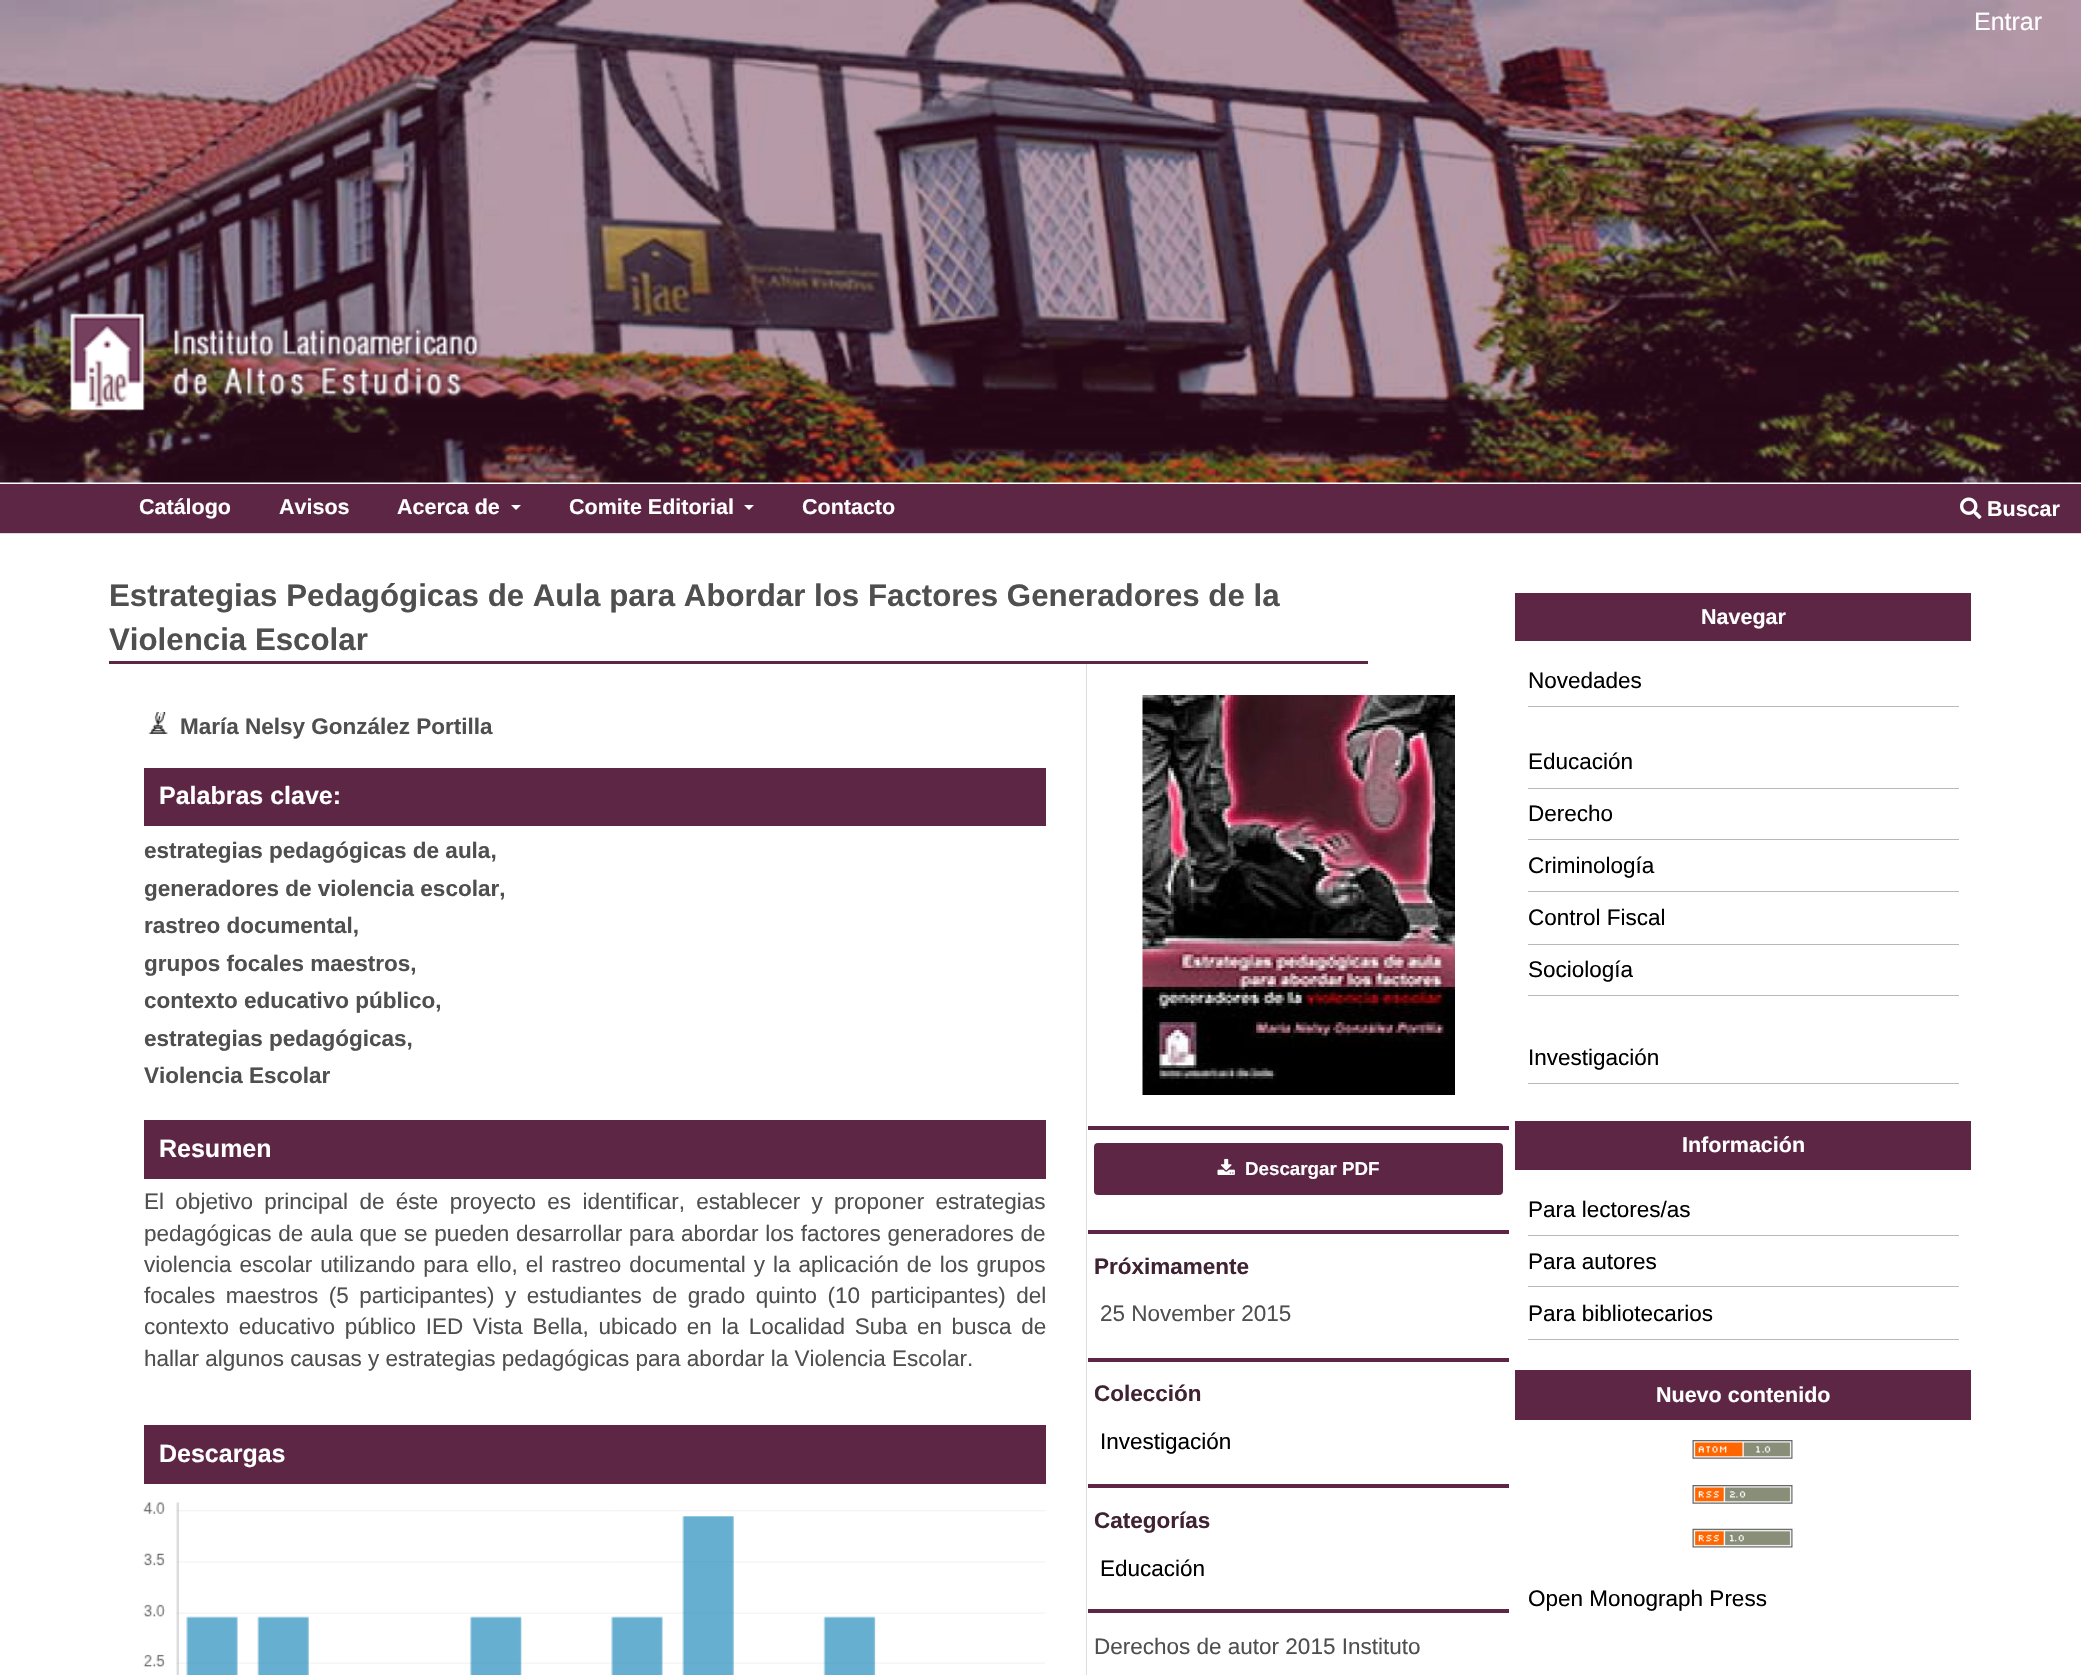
void draw(SkCanvas* canvas) {
    SkPaint paint;
    paint.setAntiAlias(true);
    auto face = [&](const char* family, int weight, float size, bool italic = false) {
        SkFontStyle style(weight, SkFontStyle::kNormal_Width,
            italic ? SkFontStyle::kItalic_Slant : SkFontStyle::kUpright_Slant);
        SkFont result(fontMgr->matchFamilyStyle(family, style), size);
        result.setSubpixel(true);
        return result;
    };
    auto write = [&](const char* s, float x, float y, const SkFont& font, SkColor color) {
        SkPaint ink(SkColor4f::FromColor(color));
        ink.setAntiAlias(true);
        canvas->drawString(s, x, y, font, ink);
    };
    auto writeSpaced = [&](const char* s, float x, float y, const SkFont& font, const SkPaint& ink, float letter, float word) {
        std::vector<SkGlyphID> glyphs(font.countText(s, strlen(s), SkTextEncoding::kUTF8));
        std::vector<float> xs(glyphs.size());
        font.textToGlyphs(s, strlen(s), SkTextEncoding::kUTF8, glyphs);
        font.getXPos(glyphs, xs, x);
        float extra = 0;
        for (size_t i = 0; i < glyphs.size(); i++) {
            xs[i] += extra;
            extra += letter + word * (glyphs[i] == font.unicharToGlyph(' '));
        }
        canvas->drawTextBlob(SkTextBlob::MakeFromPosHGlyphs(glyphs, xs, y, font), 0, 0, ink);
    };
    auto block = [&](float x, float y, float w, float h, SkColor color) {
        SkPaint ink(SkColor4f::FromColor(color));
        ink.setAntiAlias(true);
        canvas->drawRect(SkRect::MakeXYWH(x, y, w, h), ink);
    };
    auto card = [&](float x, float y, float w, float h, float radius, SkColor color) {
        SkPaint ink(SkColor4f::FromColor(color));
        ink.setAntiAlias(true);
        canvas->drawRoundRect(SkRect::MakeXYWH(x, y, w, h), radius, radius, ink);
    };
    auto paste = [&](const char* path, float x, float y, float w, float h) {
        auto image = SkImages::DeferredFromEncodedData(SkData::MakeFromFileName(path));
        canvas->drawImageRect(image, SkRect::MakeXYWH(x, y, w, h), SkSamplingOptions());
    };
    canvas->clear(SK_ColorWHITE);
    block(0, 533, 2081, 1, SkColorSetRGB(221, 221, 221));
    paste("pic1.png", 0, 0, 2081, 483);
    auto kFont1 = face("Liberation Sans", 400, 25);
    write("Entrar", 1974, 30, kFont1, SK_ColorWHITE);
    block(0, 484, 2081, 49, SkColorSetRGB(93, 38, 69));
    auto kFont2 = face("Liberation Sans", 700, 21.5f);
    write("Catálogo", 139, 514, kFont2, SK_ColorWHITE);
    write("Avisos", 279, 514, kFont2, SK_ColorWHITE);
    write("Acerca de", 397, 514, kFont2, SK_ColorWHITE);
    paint.setColor(SK_ColorWHITE);
    canvas->drawPath(SkPathBuilder().moveTo(511, 505).lineTo(521, 505).lineTo(516, 510).close().detach(), paint);
    write("Comite Editorial", 569, 514, kFont2, SK_ColorWHITE);
    canvas->drawPath(SkPathBuilder().moveTo(744, 505).lineTo(754, 505).lineTo(749, 510).close().detach(), paint);
    write("Contacto", 802, 514, kFont2, SK_ColorWHITE);
    paste("pic2.png", 1960, 497, 22, 22);
    write("Buscar", 1987, 516, kFont2, SK_ColorWHITE);
    block(109, 661, 1259, 3, SkColorSetRGB(93, 38, 69));
    auto kFont3 = face("Liberation Sans", 700, 31.25f);
    write("Estrategias Pedagógicas de Aula para Abordar los Factores Generadores de la", 109, 606, kFont3, SkColorSetRGB(79, 79, 79));
    write("Violencia Escolar", 109, 650, kFont3, SkColorSetRGB(79, 79, 79));
    block(1086, 664, 1, 1011, SkColorSetRGB(221, 221, 221));
    paste("pic3.png", 148, 712, 20, 22);
    auto kFont4 = face("Liberation Sans", 700, 22.5f);
    write("María Nelsy González Portilla", 180, 734, kFont4, SkColorSetRGB(79, 79, 79));
    block(144, 768, 902, 58, SkColorSetRGB(93, 38, 69));
    auto kFont5 = face("Liberation Sans", 700, 25);
    write("Palabras clave:", 159, 804, kFont5, SK_ColorWHITE);
    write("estrategias pedagógicas de aula,", 144, 858, kFont4, SkColorSetRGB(79, 79, 79));
    write("generadores de violencia escolar,", 144, 896, kFont4, SkColorSetRGB(79, 79, 79));
    write("rastreo documental,", 144, 933, kFont4, SkColorSetRGB(79, 79, 79));
    write("grupos focales maestros,", 144, 971, kFont4, SkColorSetRGB(79, 79, 79));
    write("contexto educativo público,", 144, 1008, kFont4, SkColorSetRGB(79, 79, 79));
    write("estrategias pedagógicas,", 144, 1046, kFont4, SkColorSetRGB(79, 79, 79));
    write("Violencia Escolar", 144, 1083, kFont4, SkColorSetRGB(79, 79, 79));
    block(144, 1120, 902, 59, SkColorSetRGB(93, 38, 69));
    write("Resumen", 159, 1157, kFont5, SK_ColorWHITE);
    auto kFont6 = face("Liberation Sans", 400, 22.5f);
    paint.setColor(SkColorSetRGB(79, 79, 79));
    writeSpaced("El objetivo principal de éste proyecto es identificar, establecer y proponer estrategias", 144, 1209, kFont6, paint, 0, 5.1f);
    writeSpaced("pedagógicas de aula que se pueden desarrollar para abordar los factores generadores de", 144, 1241, kFont6, paint, 0, 0.5f);
    writeSpaced("violencia escolar utilizando para ello, el rastreo documental y la aplicación de los grupos", 144, 1272, kFont6, paint, 0, 1.8f);
    writeSpaced("focales maestros (5 participantes) y estudiantes de grado quinto (10 participantes) del", 144, 1303, kFont6, paint, 0, 4.25f);
    writeSpaced("contexto educativo público IED Vista Bella, ubicado en la Localidad Suba en busca de", 144, 1334, kFont6, paint, 0, 3.4f);
    write("hallar algunos causas y estrategias pedagógicas para abordar la Violencia Escolar.", 144, 1366, kFont6, SkColorSetRGB(79, 79, 79));
    block(144, 1425, 902, 59, SkColorSetRGB(93, 38, 69));
    write("Descargas", 159, 1462, kFont5, SK_ColorWHITE);
    paste("pic4.png", 143, 1502, 902, 173);
    block(1088, 1126, 421, 4, SkColorSetRGB(93, 38, 69));
    paste("pic5.png", 1142, 695, 313, 400);
    block(1088, 1230, 421, 4, SkColorSetRGB(93, 38, 69));
    card(1094, 1143, 409, 52, 4, SkColorSetRGB(93, 38, 69));
    paste("pic6.png", 1217, 1158, 18, 17);
    auto kFont7 = face("Liberation Sans", 700, 18.75f);
    write("Descargar PDF", 1245, 1175, kFont7, SK_ColorWHITE);
    block(1088, 1358, 421, 4, SkColorSetRGB(93, 38, 69));
    write("Próximamente", 1094, 1274, kFont4, SkColorSetRGB(63, 35, 51));
    write("25 November 2015", 1100, 1321, kFont6, SkColorSetRGB(79, 79, 79));
    block(1088, 1484, 421, 4, SkColorSetRGB(93, 38, 69));
    write("Colección", 1094, 1401, kFont4, SkColorSetRGB(63, 35, 51));
    write("Investigación", 1100, 1449, kFont6, SK_ColorBLACK);
    block(1088, 1609, 421, 4, SkColorSetRGB(93, 38, 69));
    write("Categorías", 1094, 1528, kFont4, SkColorSetRGB(63, 35, 51));
    write("Educación", 1100, 1576, kFont6, SK_ColorBLACK);
    write("Derechos de autor 2015 Instituto", 1094, 1654, kFont6, SkColorSetRGB(79, 79, 79));
    block(1515, 593, 456, 48, SkColorSetRGB(93, 38, 69));
    write("Navegar", 1701, 624, kFont2, SK_ColorWHITE);
    block(1528, 706, 431, 1, SkColorSetRGB(184, 184, 184));
    write("Novedades", 1528, 688, kFont6, SK_ColorBLACK);
    block(1528, 788, 431, 1, SkColorSetRGB(184, 184, 184));
    write("Educación", 1528, 769, kFont6, SK_ColorBLACK);
    block(1528, 839, 431, 1, SkColorSetRGB(184, 184, 184));
    write("Derecho", 1528, 821, kFont6, SK_ColorBLACK);
    block(1528, 891, 431, 1, SkColorSetRGB(184, 184, 184));
    write("Criminología", 1528, 873, kFont6, SK_ColorBLACK);
    block(1528, 944, 431, 1, SkColorSetRGB(184, 184, 184));
    write("Control Fiscal", 1528, 925, kFont6, SK_ColorBLACK);
    block(1528, 995, 431, 1, SkColorSetRGB(184, 184, 184));
    write("Sociología", 1528, 977, kFont6, SK_ColorBLACK);
    block(1528, 1083, 431, 1, SkColorSetRGB(184, 184, 184));
    write("Investigación", 1528, 1065, kFont6, SK_ColorBLACK);
    block(1515, 1121, 456, 49, SkColorSetRGB(93, 38, 69));
    write("Información", 1682, 1152, kFont2, SK_ColorWHITE);
    block(1528, 1235, 431, 1, SkColorSetRGB(184, 184, 184));
    write("Para lectores/as", 1528, 1217, kFont6, SK_ColorBLACK);
    block(1528, 1286, 431, 1, SkColorSetRGB(184, 184, 184));
    write("Para autores", 1528, 1269, kFont6, SK_ColorBLACK);
    block(1528, 1339, 431, 1, SkColorSetRGB(184, 184, 184));
    write("Para bibliotecarios", 1528, 1321, kFont6, SK_ColorBLACK);
    block(1515, 1370, 456, 50, SkColorSetRGB(93, 38, 69));
    write("Nuevo contenido", 1656, 1402, kFont2, SK_ColorWHITE);
    paste("pic7.png", 1692, 1440, 101, 19);
    paste("pic8.png", 1692, 1485, 101, 19);
    paste("pic9.png", 1692, 1528, 101, 20);
    write("Open Monograph Press", 1528, 1606, kFont6, SK_ColorBLACK);
}
